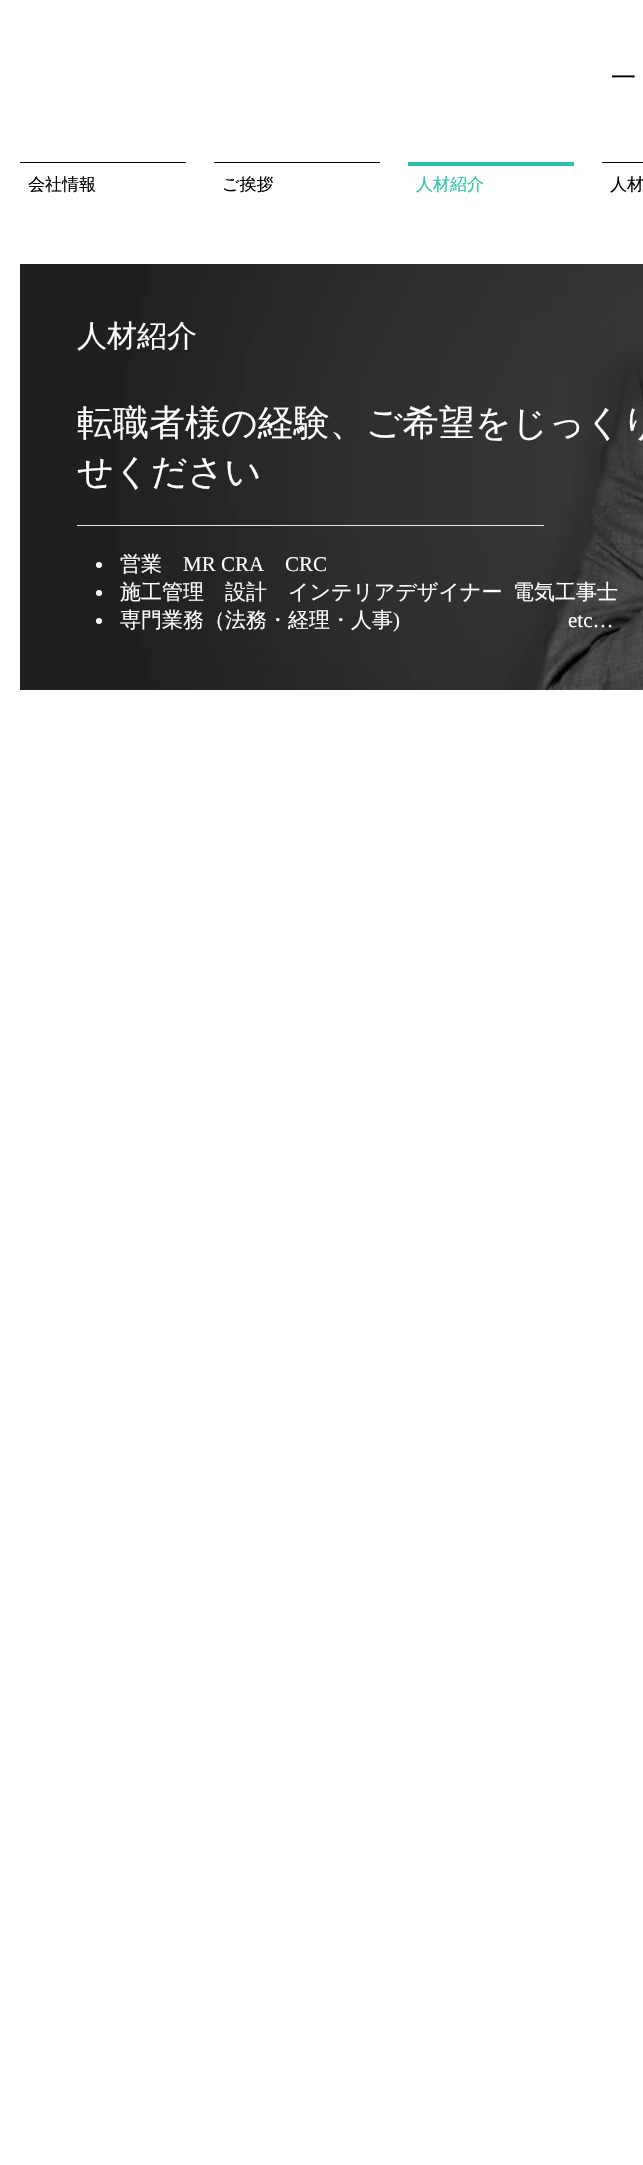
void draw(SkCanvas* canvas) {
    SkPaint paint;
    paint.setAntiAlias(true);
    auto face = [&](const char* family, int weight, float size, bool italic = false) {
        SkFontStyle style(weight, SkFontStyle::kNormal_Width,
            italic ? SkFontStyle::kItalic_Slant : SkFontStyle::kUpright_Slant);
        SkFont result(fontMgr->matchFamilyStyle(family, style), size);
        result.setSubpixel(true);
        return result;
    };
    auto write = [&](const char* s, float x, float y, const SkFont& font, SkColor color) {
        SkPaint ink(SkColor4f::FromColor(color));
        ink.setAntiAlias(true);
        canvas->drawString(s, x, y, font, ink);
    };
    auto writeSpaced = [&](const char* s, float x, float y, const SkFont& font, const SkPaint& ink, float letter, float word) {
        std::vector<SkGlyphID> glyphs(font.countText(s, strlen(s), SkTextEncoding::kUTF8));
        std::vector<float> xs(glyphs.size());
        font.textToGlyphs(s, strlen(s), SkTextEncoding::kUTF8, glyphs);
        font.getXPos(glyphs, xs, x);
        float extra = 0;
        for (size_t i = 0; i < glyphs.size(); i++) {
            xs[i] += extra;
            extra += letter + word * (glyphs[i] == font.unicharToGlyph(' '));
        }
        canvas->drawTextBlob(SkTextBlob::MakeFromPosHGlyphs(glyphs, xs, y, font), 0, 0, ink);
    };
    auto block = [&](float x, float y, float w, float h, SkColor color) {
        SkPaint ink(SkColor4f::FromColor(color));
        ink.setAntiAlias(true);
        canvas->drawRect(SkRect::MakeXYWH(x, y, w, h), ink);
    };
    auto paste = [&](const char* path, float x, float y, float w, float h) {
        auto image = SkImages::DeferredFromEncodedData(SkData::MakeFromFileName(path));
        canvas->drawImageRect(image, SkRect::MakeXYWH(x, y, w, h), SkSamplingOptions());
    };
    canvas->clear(SK_ColorWHITE);
    auto kFont1 = face("WenQuanYi Zen Hei", 500, 25);
    paint.setColor(SK_ColorBLACK);
    writeSpaced("一", 611, 86, kFont1, paint, -1, 0);
    block(20, 162, 166, 1, SK_ColorBLACK);
    auto kFont2 = face("WenQuanYi Zen Hei", 500, 17);
    write("会社情報", 28, 190, kFont2, SK_ColorBLACK);
    block(214, 162, 166, 1, SK_ColorBLACK);
    write("ご挨拶", 222, 190, kFont2, SK_ColorBLACK);
    block(408, 162, 166, 4, SkColorSetRGB(43, 195, 167));
    write("人材紹介", 416, 190, kFont2, SkColorSetRGB(43, 195, 167));
    block(602, 162, 41, 1, SK_ColorBLACK);
    write("人材", 610, 190, kFont2, SK_ColorBLACK);
    paste("pic1.png", 20, 264, 623, 426);
    auto kFont3 = face("WenQuanYi Zen Hei", 500, 30);
    write("人材紹介", 77, 346, kFont3, SK_ColorWHITE);
    auto kFont4 = face("WenQuanYi Zen Hei", 500, 36);
    write("転職者様の経験、ご希望をじっくり", 77, 435, kFont4, SK_ColorWHITE);
    write("せください", 77, 484, kFont4, SK_ColorWHITE);
    block(77, 525, 467, 1, SkColorSetRGB(232, 231, 231));
    paint.setColor(SK_ColorWHITE);
    canvas->drawCircle(99, 565, 3, paint);
    auto kFont5 = face("WenQuanYi Zen Hei", 500, 21);
    write("営業", 120, 571, kFont5, SK_ColorWHITE);
    auto kFont6 = face("Liberation Serif", 400, 21);
    write("MR CRA", 183, 571, kFont6, SK_ColorWHITE);
    write("CRC", 285, 571, kFont6, SK_ColorWHITE);
    canvas->drawCircle(99, 593, 3, paint);
    write("施工管理　設計　インテリアデザイナー", 120, 599, kFont5, SK_ColorWHITE);
    write("電気工事士", 513, 599, kFont5, SK_ColorWHITE);
    canvas->drawCircle(99, 621, 3, paint);
    write("専門業務（法務・経理・人事", 120, 627, kFont5, SK_ColorWHITE);
    write(")", 393, 627, kFont6, SK_ColorWHITE);
    write("etc…", 568, 627, kFont6, SK_ColorWHITE);
}
